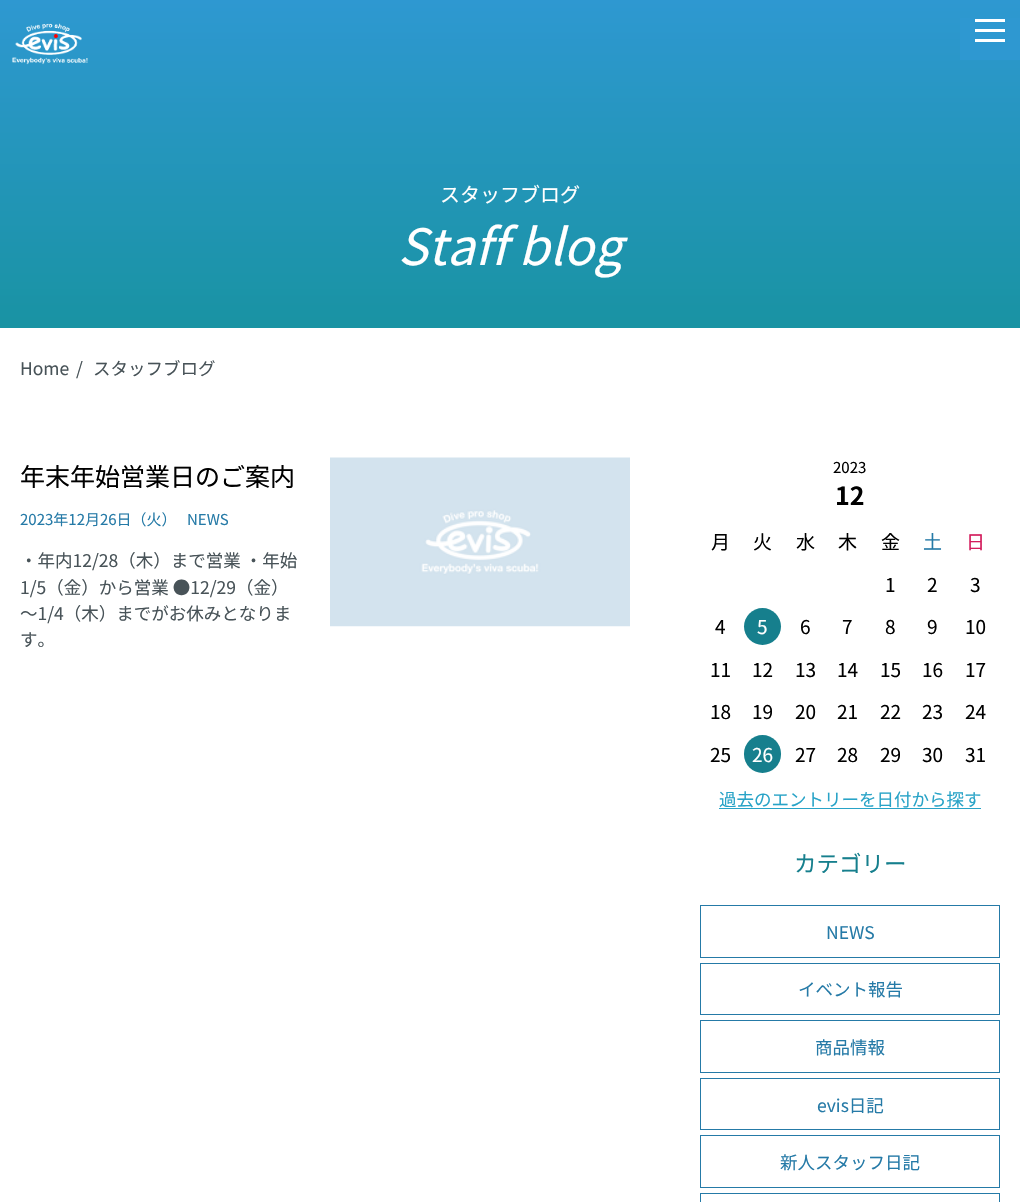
void draw(SkCanvas* canvas) {
    SkPaint paint;
    paint.setAntiAlias(true);
    auto face = [&](const char* family, int weight, float size, bool italic = false) {
        SkFontStyle style(weight, SkFontStyle::kNormal_Width,
            italic ? SkFontStyle::kItalic_Slant : SkFontStyle::kUpright_Slant);
        SkFont result(fontMgr->matchFamilyStyle(family, style), size);
        result.setSubpixel(true);
        return result;
    };
    auto write = [&](const char* s, float x, float y, const SkFont& font, SkColor color) {
        SkPaint ink(SkColor4f::FromColor(color));
        ink.setAntiAlias(true);
        canvas->drawString(s, x, y, font, ink);
    };
    auto block = [&](float x, float y, float w, float h, SkColor color) {
        SkPaint ink(SkColor4f::FromColor(color));
        ink.setAntiAlias(true);
        canvas->drawRect(SkRect::MakeXYWH(x, y, w, h), ink);
    };
    auto card = [&](float x, float y, float w, float h, float radius, SkColor color) {
        SkPaint ink(SkColor4f::FromColor(color));
        ink.setAntiAlias(true);
        canvas->drawRoundRect(SkRect::MakeXYWH(x, y, w, h), radius, radius, ink);
    };
    auto paste = [&](const char* path, float x, float y, float w, float h) {
        auto image = SkImages::DeferredFromEncodedData(SkData::MakeFromFileName(path));
        canvas->drawImageRect(image, SkRect::MakeXYWH(x, y, w, h), SkSamplingOptions());
    };
    canvas->clear(SK_ColorWHITE);
    {
        const SkColor colors[] = {SkColorSetRGB(46, 152, 209), SkColorSetRGB(25, 147, 163)};
        const float stops[] = {0, 1};
        const SkPoint ends[] = {{510, 0}, {510, 328}};
        paint.setShader(SkGradientShader::MakeLinear(ends, colors, stops, 2, SkTileMode::kClamp));
        paint.setAlpha(255);
    }
    canvas->drawRect(SkRect::MakeXYWH(0, 0, 1020, 328), paint);
    paste("pic1.png", 12, 23, 76, 42);
    block(960, 18, 60, 42, SkColorSetRGB(46, 152, 209));
    block(975, 19, 30, 3, SK_ColorWHITE);
    block(975, 29, 30, 3, SK_ColorWHITE);
    block(975, 39, 30, 3, SK_ColorWHITE);
    auto kFont1 = face("Noto Sans JP", 400, 20);
    write("スタッフブログ", 440, 202, kFont1, SK_ColorWHITE);
    auto kFont2 = face("Noto Sans JP", 400, 50, true);
    write("Staff blog", 398, 265, kFont2, SK_ColorWHITE);
    auto kFont3 = face("Noto Sans JP", 400, 17.5f);
    write("Home", 20, 375, kFont3, SkColorSetRGB(72, 83, 88));
    write("/", 76, 375, kFont3, SkColorSetRGB(72, 83, 88));
    write("スタッフブログ", 93, 375, kFont3, SkColorSetRGB(72, 83, 88));
    auto kFont4 = face("Noto Sans JP", 400, 25);
    write("年末年始営業日のご案内", 20, 486, kFont4, SK_ColorBLACK);
    auto kFont5 = face("Noto Sans JP", 400, 15);
    write("2023年12月26日（火）", 20, 525, kFont5, SkColorSetRGB(37, 122, 167));
    write("NEWS", 187, 525, kFont5, SkColorSetRGB(37, 122, 167));
    write("・年内12/28（木）まで営業 ・年始", 20, 567, kFont3, SkColorSetRGB(72, 83, 88));
    write("1/5（金）から営業 ●12/29（金）", 20, 594, kFont3, SkColorSetRGB(72, 83, 88));
    write("～1/4（木）までがお休みとなりま", 20, 620, kFont3, SkColorSetRGB(72, 83, 88));
    write("す。", 20, 646, kFont3, SkColorSetRGB(72, 83, 88));
    paste("pic2.png", 330, 457, 300, 170);
    write("2023", 833, 473, kFont5, SK_ColorBLACK);
    auto kFont6 = face("Noto Sans JP", 700, 25);
    write("12", 835, 505, kFont6, SK_ColorBLACK);
    auto kFont7 = face("Noto Sans JP", 400, 19);
    write("月", 711, 549, kFont7, SK_ColorBLACK);
    write("火", 753, 549, kFont7, SK_ColorBLACK);
    write("水", 796, 549, kFont7, SK_ColorBLACK);
    write("木", 838, 549, kFont7, SK_ColorBLACK);
    write("金", 881, 549, kFont7, SK_ColorBLACK);
    write("土", 923, 549, kFont7, SkColorSetRGB(37, 122, 167));
    write("日", 966, 549, kFont7, SkColorSetRGB(211, 27, 91));
    write("1", 885, 592, kFont7, SK_ColorBLACK);
    write("2", 927, 592, kFont7, SK_ColorBLACK);
    write("3", 970, 592, kFont7, SK_ColorBLACK);
    write("4", 715, 634, kFont7, SK_ColorBLACK);
    paint.setShader(nullptr);
    paint.setColor(SkColorSetRGB(22, 127, 141));
    canvas->drawCircle(762.5f, 626.5f, 18.5f, paint);
    write("5", 757, 634, kFont7, SK_ColorWHITE);
    write("6", 800, 634, kFont7, SK_ColorBLACK);
    write("7", 842, 634, kFont7, SK_ColorBLACK);
    write("8", 885, 634, kFont7, SK_ColorBLACK);
    write("9", 927, 634, kFont7, SK_ColorBLACK);
    write("10", 965, 634, kFont7, SK_ColorBLACK);
    write("11", 710, 677, kFont7, SK_ColorBLACK);
    write("12", 752, 677, kFont7, SK_ColorBLACK);
    write("13", 795, 677, kFont7, SK_ColorBLACK);
    write("14", 837, 677, kFont7, SK_ColorBLACK);
    write("15", 880, 677, kFont7, SK_ColorBLACK);
    write("16", 922, 677, kFont7, SK_ColorBLACK);
    write("17", 965, 677, kFont7, SK_ColorBLACK);
    write("18", 710, 719, kFont7, SK_ColorBLACK);
    write("19", 752, 719, kFont7, SK_ColorBLACK);
    write("20", 795, 719, kFont7, SK_ColorBLACK);
    write("21", 837, 719, kFont7, SK_ColorBLACK);
    write("22", 880, 719, kFont7, SK_ColorBLACK);
    write("23", 922, 719, kFont7, SK_ColorBLACK);
    write("24", 965, 719, kFont7, SK_ColorBLACK);
    write("25", 710, 762, kFont7, SK_ColorBLACK);
    card(744, 735, 37, 38, 18.5f, SkColorSetRGB(22, 127, 141));
    write("26", 752, 762, kFont7, SK_ColorWHITE);
    write("27", 795, 762, kFont7, SK_ColorBLACK);
    write("28", 837, 762, kFont7, SK_ColorBLACK);
    write("29", 880, 762, kFont7, SK_ColorBLACK);
    write("30", 922, 762, kFont7, SK_ColorBLACK);
    write("31", 965, 762, kFont7, SK_ColorBLACK);
    write("過去のエントリーを日付から探す", 719, 806, kFont3, SkColorSetRGB(40, 163, 199));
    block(719, 808, 262, 1, SkColorSetRGB(40, 163, 199));
    auto kFont8 = face("Noto Sans JP", 400, 22.5f);
    write("カテゴリー", 794, 872, kFont8, SkColorSetRGB(22, 127, 141));
    paint.setStyle(SkPaint::kStroke_Style);
    paint.setStrokeWidth(1);
    paint.setColor(SkColorSetRGB(37, 122, 167));
    canvas->drawRect(SkRect::MakeXYWH(700.5f, 905.5f, 299, 52), paint);
    write("NEWS", 826, 939, kFont3, SkColorSetRGB(37, 122, 167));
    canvas->drawRect(SkRect::MakeXYWH(700.5f, 963.5f, 299, 51), paint);
    write("イベント報告", 798, 996, kFont3, SkColorSetRGB(37, 122, 167));
    canvas->drawRect(SkRect::MakeXYWH(700.5f, 1020.5f, 299, 52), paint);
    write("商品情報", 815, 1054, kFont3, SkColorSetRGB(37, 122, 167));
    canvas->drawRect(SkRect::MakeXYWH(700.5f, 1078.5f, 299, 51), paint);
    write("evis日記", 817, 1112, kFont3, SkColorSetRGB(37, 122, 167));
    canvas->drawRect(SkRect::MakeXYWH(700.5f, 1135.5f, 299, 52), paint);
    write("新人スタッフ日記", 780, 1169, kFont3, SkColorSetRGB(37, 122, 167));
    canvas->drawRect(SkRect::MakeXYWH(700.5f, 1193.5f, 299, 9), paint);
}
